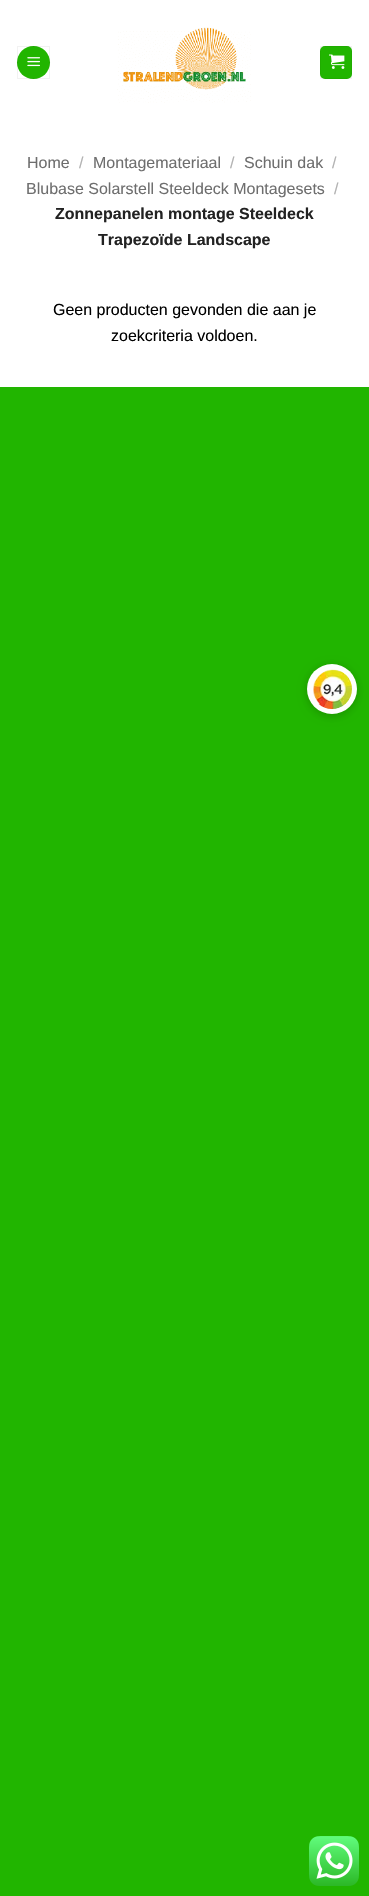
void draw(SkCanvas* canvas) {
    SkPaint paint;
    paint.setAntiAlias(true);
    auto face = [&](const char* family, int weight, float size, bool italic = false) {
        SkFontStyle style(weight, SkFontStyle::kNormal_Width,
            italic ? SkFontStyle::kItalic_Slant : SkFontStyle::kUpright_Slant);
        SkFont result(fontMgr->matchFamilyStyle(family, style), size);
        result.setSubpixel(true);
        return result;
    };
    auto write = [&](const char* s, float x, float y, const SkFont& font, SkColor color) {
        SkPaint ink(SkColor4f::FromColor(color));
        ink.setAntiAlias(true);
        canvas->drawString(s, x, y, font, ink);
    };
    auto block = [&](float x, float y, float w, float h, SkColor color) {
        SkPaint ink(SkColor4f::FromColor(color));
        ink.setAntiAlias(true);
        canvas->drawRect(SkRect::MakeXYWH(x, y, w, h), ink);
    };
    auto card = [&](float x, float y, float w, float h, float radius, SkColor color) {
        SkPaint ink(SkColor4f::FromColor(color));
        ink.setAntiAlias(true);
        canvas->drawRoundRect(SkRect::MakeXYWH(x, y, w, h), radius, radius, ink);
    };
    auto paste = [&](const char* path, float x, float y, float w, float h) {
        auto image = SkImages::DeferredFromEncodedData(SkData::MakeFromFileName(path));
        canvas->drawImageRect(image, SkRect::MakeXYWH(x, y, w, h), SkSamplingOptions());
    };
    canvas->clear(SkColorSetRGB(33, 181, 0));
    block(0, 0, 369, 387, SK_ColorWHITE);
    paint.setColor(SkColorSetRGB(33, 181, 0));
    canvas->drawCircle(33.5f, 62.5f, 16.5f, paint);
    paint.setStyle(SkPaint::kStroke_Style);
    paint.setStrokeWidth(1);
    paint.setColor(SkColorSetARGB(13, 0, 0, 0));
    canvas->drawRect(SkRect::MakeXYWH(17.5f, 46.5f, 32, 32), paint);
    paste("pic1.png", 27, 57, 13, 10);
    paste("pic2.png", 117, 27, 134, 76);
    card(320, 46, 32, 33, 5, SkColorSetRGB(33, 181, 0));
    canvas->drawRect(SkRect::MakeXYWH(320.5f, 46.5f, 31, 32), paint);
    paste("pic3.png", 329, 54, 16, 15);
    auto kFont1 = face("Liberation Sans", 400, 16);
    write("Home", 27, 168, kFont1, SkColorSetRGB(110, 110, 110));
    write("/", 79, 168, kFont1, SkColorSetRGB(178, 178, 178));
    write("Montagemateriaal", 93, 168, kFont1, SkColorSetRGB(110, 110, 110));
    write("/", 230, 168, kFont1, SkColorSetRGB(178, 178, 178));
    write("Schuin dak", 244, 168, kFont1, SkColorSetRGB(110, 110, 110));
    write("/", 332, 168, kFont1, SkColorSetRGB(178, 178, 178));
    write("Blubase Solarstell Steeldeck Montagesets", 26, 194, kFont1, SkColorSetRGB(110, 110, 110));
    write("/", 334, 194, kFont1, SkColorSetRGB(178, 178, 178));
    auto kFont2 = face("Liberation Sans", 700, 16);
    write("Zonnepanelen montage Steeldeck", 55, 219, kFont2, SkColorSetRGB(34, 34, 34));
    write("Trapezoïde Landscape", 98, 245, kFont2, SkColorSetRGB(34, 34, 34));
    write("Geen producten gevonden die aan je", 53, 315, kFont1, SK_ColorBLACK);
    write("zoekcriteria voldoen.", 111, 341, kFont1, SK_ColorBLACK);
    paint.setStyle(SkPaint::kFill_Style);
    paint.setColor(SkColorSetARGB(51, 0, 0, 0));
    paint.setMaskFilter(SkMaskFilter::MakeBlur(kNormal_SkBlurStyle, 5));
    canvas->drawRoundRect(SkRect::MakeXYWH(307, 666, 50, 50), 25, 25, paint);
    paint.setMaskFilter(nullptr);
    paint.setColor(SK_ColorWHITE);
    canvas->drawCircle(332, 689, 25, paint);
    paste("pic4.png", 313, 669, 39, 40);
    paste("pic5.png", 309, 1836, 50, 50);
}
